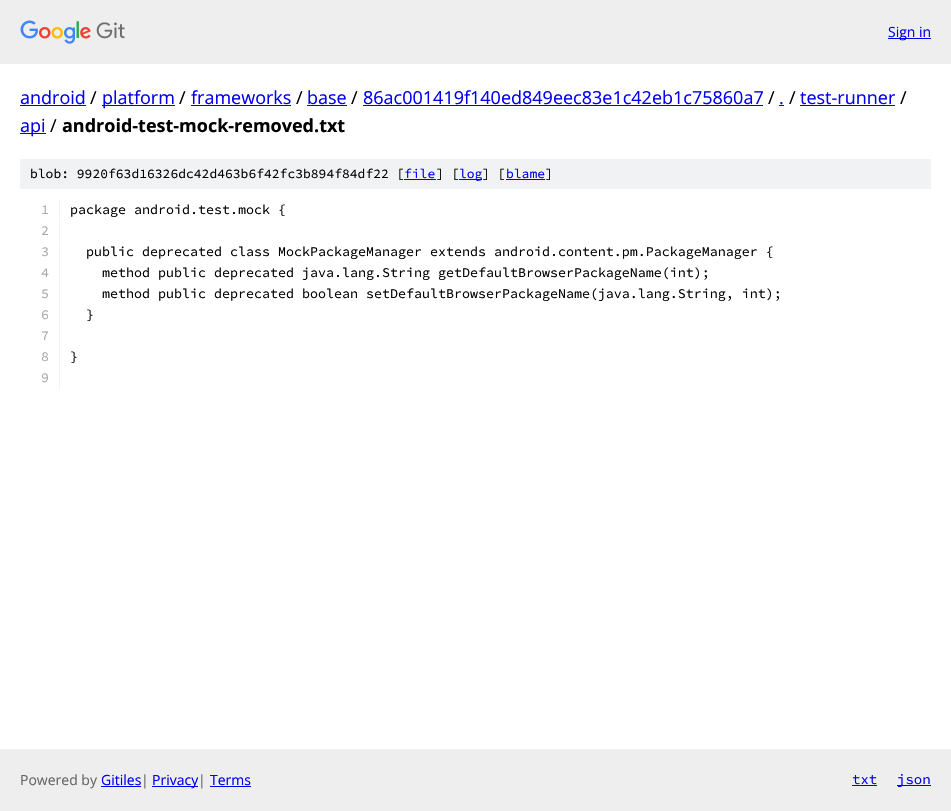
void draw(SkCanvas* canvas) {
    SkPaint paint;
    paint.setAntiAlias(true);
    auto face = [&](const char* family, int weight, float size, bool italic = false) {
        SkFontStyle style(weight, SkFontStyle::kNormal_Width,
            italic ? SkFontStyle::kItalic_Slant : SkFontStyle::kUpright_Slant);
        SkFont result(fontMgr->matchFamilyStyle(family, style), size);
        result.setSubpixel(true);
        return result;
    };
    auto write = [&](const char* s, float x, float y, const SkFont& font, SkColor color) {
        SkPaint ink(SkColor4f::FromColor(color));
        ink.setAntiAlias(true);
        canvas->drawString(s, x, y, font, ink);
    };
    auto block = [&](float x, float y, float w, float h, SkColor color) {
        SkPaint ink(SkColor4f::FromColor(color));
        ink.setAntiAlias(true);
        canvas->drawRect(SkRect::MakeXYWH(x, y, w, h), ink);
    };
    auto paste = [&](const char* path, float x, float y, float w, float h) {
        auto image = SkImages::DeferredFromEncodedData(SkData::MakeFromFileName(path));
        canvas->drawImageRect(image, SkRect::MakeXYWH(x, y, w, h), SkSamplingOptions());
    };
    canvas->clear(SK_ColorWHITE);
    block(0, 0, 951, 64, SkColorSetRGB(238, 238, 238));
    paste("pic1.png", 20, 20, 105, 24);
    block(888, 38, 43, 1, SkColorSetRGB(0, 0, 238));
    auto kFont1 = face("Open Sans", 400, 14);
    write("Sign in", 888, 37, kFont1, SkColorSetRGB(0, 0, 238));
    auto kFont2 = face("Open Sans", 400, 18);
    write("android", 20, 104, kFont2, SkColorSetRGB(0, 0, 238));
    block(20, 105, 66, 1, SkColorSetRGB(0, 0, 238));
    write("/", 90, 104, kFont2, SK_ColorBLACK);
    block(102, 105, 73, 1, SkColorSetRGB(0, 0, 238));
    write("platform", 102, 104, kFont2, SkColorSetRGB(0, 0, 238));
    write("/", 179, 104, kFont2, SK_ColorBLACK);
    write("frameworks", 191, 104, kFont2, SkColorSetRGB(0, 0, 238));
    block(191, 105, 100, 1, SkColorSetRGB(0, 0, 238));
    write("/", 296, 104, kFont2, SK_ColorBLACK);
    write("base", 307, 104, kFont2, SkColorSetRGB(0, 0, 238));
    block(307, 105, 40, 1, SkColorSetRGB(0, 0, 238));
    write("/", 351, 104, kFont2, SK_ColorBLACK);
    write("86ac001419f140ed849eec83e1c42eb1c75860a7", 363, 104, kFont2, SkColorSetRGB(0, 0, 238));
    block(363, 105, 400, 1, SkColorSetRGB(0, 0, 238));
    write("/", 768, 104, kFont2, SK_ColorBLACK);
    write(".", 779, 104, kFont2, SkColorSetRGB(0, 0, 238));
    block(779, 105, 5, 1, SkColorSetRGB(0, 0, 238));
    write("/", 789, 104, kFont2, SK_ColorBLACK);
    write("test-runner", 800, 104, kFont2, SkColorSetRGB(0, 0, 238));
    block(800, 105, 95, 1, SkColorSetRGB(0, 0, 238));
    write("/", 900, 104, kFont2, SK_ColorBLACK);
    block(20, 133, 26, 1, SkColorSetRGB(0, 0, 238));
    write("api", 20, 132, kFont2, SkColorSetRGB(0, 0, 238));
    write("/", 50, 132, kFont2, SK_ColorBLACK);
    auto kFont3 = face("Open Sans", 700, 18);
    write("android-test-mock-removed.txt", 62, 132, kFont3, SK_ColorBLACK);
    block(20, 159, 911, 30, SkColorSetRGB(241, 242, 243));
    auto kFont4 = face("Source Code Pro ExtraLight", 200, 13);
    write("blob: 9920f63d16326dc42d463b6f42fc3b894f84df22 [", 30, 178, kFont4, SK_ColorBLACK);
    write("file", 404, 178, kFont4, SkColorSetRGB(0, 0, 238));
    block(404, 179, 32, 1, SkColorSetRGB(0, 0, 238));
    write("] [", 436, 178, kFont4, SK_ColorBLACK);
    block(459, 179, 23, 1, SkColorSetRGB(0, 0, 238));
    write("log", 459, 178, kFont4, SkColorSetRGB(0, 0, 238));
    write("] [", 482, 178, kFont4, SK_ColorBLACK);
    write("blame", 506, 178, kFont4, SkColorSetRGB(0, 0, 238));
    block(506, 179, 39, 1, SkColorSetRGB(0, 0, 238));
    write("]", 545, 178, kFont4, SK_ColorBLACK);
    block(59, 200, 1, 20, SkColorSetRGB(241, 242, 243));
    auto kFont5 = face("Source Code Pro ExtraLight", 200, 13.33f);
    write("1", 41, 214, kFont5, SkColorSetRGB(170, 170, 170));
    write("package android.test.mock {", 70, 214, kFont5, SK_ColorBLACK);
    block(59, 221, 1, 20, SkColorSetRGB(241, 242, 243));
    write("2", 41, 235, kFont5, SkColorSetRGB(170, 170, 170));
    block(59, 242, 1, 147, SkColorSetRGB(241, 242, 243));
    write("3", 41, 256, kFont5, SkColorSetRGB(170, 170, 170));
    write("public deprecated class MockPackageManager extends android.content.pm.PackageManager {", 86, 256, kFont5, SK_ColorBLACK);
    write("4", 41, 277, kFont5, SkColorSetRGB(170, 170, 170));
    write("method public deprecated java.lang.String getDefaultBrowserPackageName(int);", 102, 277, kFont5, SK_ColorBLACK);
    write("5", 41, 298, kFont5, SkColorSetRGB(170, 170, 170));
    write("method public deprecated boolean setDefaultBrowserPackageName(java.lang.String, int);", 102, 298, kFont5, SK_ColorBLACK);
    write("6", 41, 319, kFont5, SkColorSetRGB(170, 170, 170));
    write("}", 86, 319, kFont5, SK_ColorBLACK);
    write("7", 41, 340, kFont5, SkColorSetRGB(170, 170, 170));
    write("8", 41, 361, kFont5, SkColorSetRGB(170, 170, 170));
    write("}", 70, 361, kFont5, SK_ColorBLACK);
    write("9", 41, 382, kFont5, SkColorSetRGB(170, 170, 170));
    block(0, 749, 951, 62, SkColorSetRGB(238, 238, 238));
    write("Powered by", 20, 785, kFont1, SkColorSetRGB(102, 102, 102));
    write("Gitiles", 101, 785, kFont1, SkColorSetRGB(0, 0, 238));
    block(101, 786, 40, 1, SkColorSetRGB(0, 0, 238));
    write("|", 141, 785, kFont1, SkColorSetRGB(102, 102, 102));
    block(152, 786, 46, 1, SkColorSetRGB(0, 0, 238));
    write("Privacy", 152, 785, kFont1, SkColorSetRGB(0, 0, 238));
    write("|", 198, 785, kFont1, SkColorSetRGB(102, 102, 102));
    write("Terms", 210, 785, kFont1, SkColorSetRGB(0, 0, 238));
    block(210, 786, 41, 1, SkColorSetRGB(0, 0, 238));
    auto kFont6 = face("Source Code Pro ExtraLight", 200, 14);
    write("txt", 852, 784, kFont6, SkColorSetRGB(0, 0, 238));
    block(852, 785, 25, 1, SkColorSetRGB(0, 0, 238));
    block(897, 785, 34, 1, SkColorSetRGB(0, 0, 238));
    write("json", 897, 784, kFont6, SkColorSetRGB(0, 0, 238));
}
